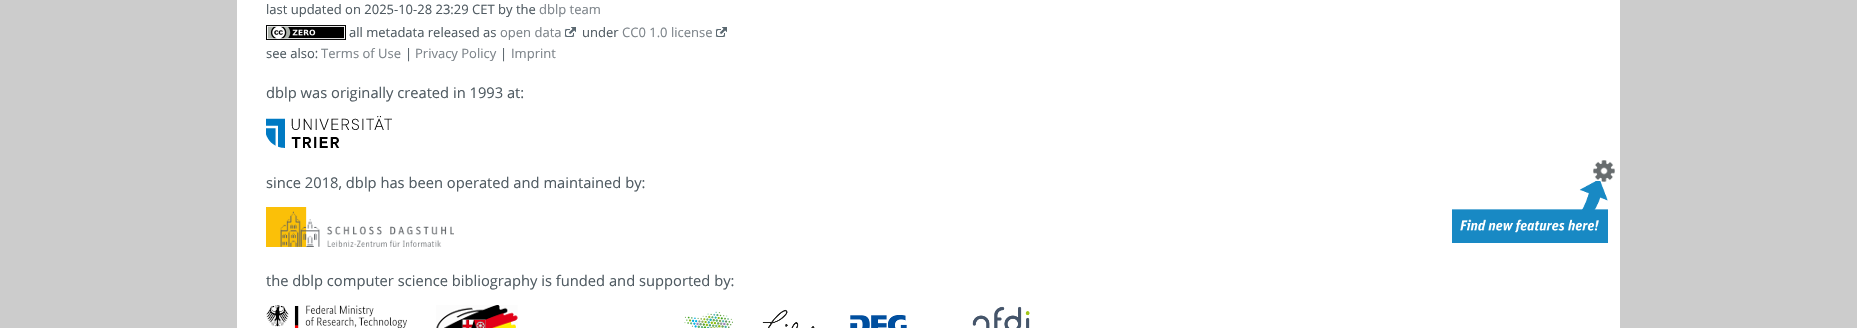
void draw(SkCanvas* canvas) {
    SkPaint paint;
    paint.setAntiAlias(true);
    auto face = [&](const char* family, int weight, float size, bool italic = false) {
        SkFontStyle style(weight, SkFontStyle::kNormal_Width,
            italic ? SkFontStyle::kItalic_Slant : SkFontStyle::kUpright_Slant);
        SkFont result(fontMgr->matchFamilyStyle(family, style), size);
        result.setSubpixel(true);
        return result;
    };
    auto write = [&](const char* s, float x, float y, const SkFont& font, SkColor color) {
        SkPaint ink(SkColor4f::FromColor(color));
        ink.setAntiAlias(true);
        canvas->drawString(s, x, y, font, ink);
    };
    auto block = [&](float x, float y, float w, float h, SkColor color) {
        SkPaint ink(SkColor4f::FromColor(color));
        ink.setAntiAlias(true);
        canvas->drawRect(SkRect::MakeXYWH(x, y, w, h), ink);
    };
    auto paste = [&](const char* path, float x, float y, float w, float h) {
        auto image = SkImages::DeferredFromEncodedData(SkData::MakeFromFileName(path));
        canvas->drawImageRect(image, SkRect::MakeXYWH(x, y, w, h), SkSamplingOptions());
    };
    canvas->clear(SkColorSetRGB(204, 204, 204));
    block(237, 0, 1383, 328, SK_ColorWHITE);
    auto kFont1 = face("Open Sans", 400, 13);
    write("last updated on 2025-10-28 23:29 CET by the", 266, 14, kFont1, SkColorSetRGB(80, 91, 98));
    write("dblp team", 539, 14, kFont1, SkColorSetRGB(125, 132, 138));
    paste("pic1.png", 266, 25, 80, 15);
    write("all metadata released as", 349, 37, kFont1, SkColorSetRGB(80, 91, 98));
    write("open data", 500, 37, kFont1, SkColorSetRGB(125, 132, 138));
    paste("pic2.png", 564, 27, 12, 10);
    write("under", 582, 37, kFont1, SkColorSetRGB(80, 91, 98));
    write("CC0 1.0 license", 622, 37, kFont1, SkColorSetRGB(125, 132, 138));
    paste("pic2.png", 715, 27, 12, 10);
    write("see also:", 266, 58, kFont1, SkColorSetRGB(80, 91, 98));
    write("Terms of Use", 321, 58, kFont1, SkColorSetRGB(125, 132, 138));
    write("|", 405, 58, kFont1, SkColorSetRGB(80, 91, 98));
    write("Privacy Policy", 415, 58, kFont1, SkColorSetRGB(125, 132, 138));
    write("|", 500, 58, kFont1, SkColorSetRGB(80, 91, 98));
    write("Imprint", 511, 58, kFont1, SkColorSetRGB(125, 132, 138));
    auto kFont2 = face("Open Sans", 400, 14.7f);
    write("dblp was originally created in 1993 at:", 266, 98, kFont2, SkColorSetRGB(80, 91, 98));
    paste("pic3.png", 266, 116, 126, 32);
    write("since 2018, dblp has been operated and maintained by:", 266, 188, kFont2, SkColorSetRGB(80, 91, 98));
    paste("pic4.png", 266, 207, 188, 40);
    write("the dblp computer science bibliography is funded and supported by:", 266, 286, kFont2, SkColorSetRGB(80, 91, 98));
    paste("pic5.png", 266, 305, 141, 23);
    paste("pic6.png", 436, 305, 82, 23);
    paste("pic7.png", 684, 311, 49, 17);
    paste("pic8.png", 762, 309, 53, 19);
    paste("pic9.png", 850, 315, 57, 13);
    paste("pic10.png", 972, 306, 58, 22);
    paste("pic12.png", 1452, 181, 156, 62);
    paste("pic11.png", 1593, 160, 22, 22);
}
